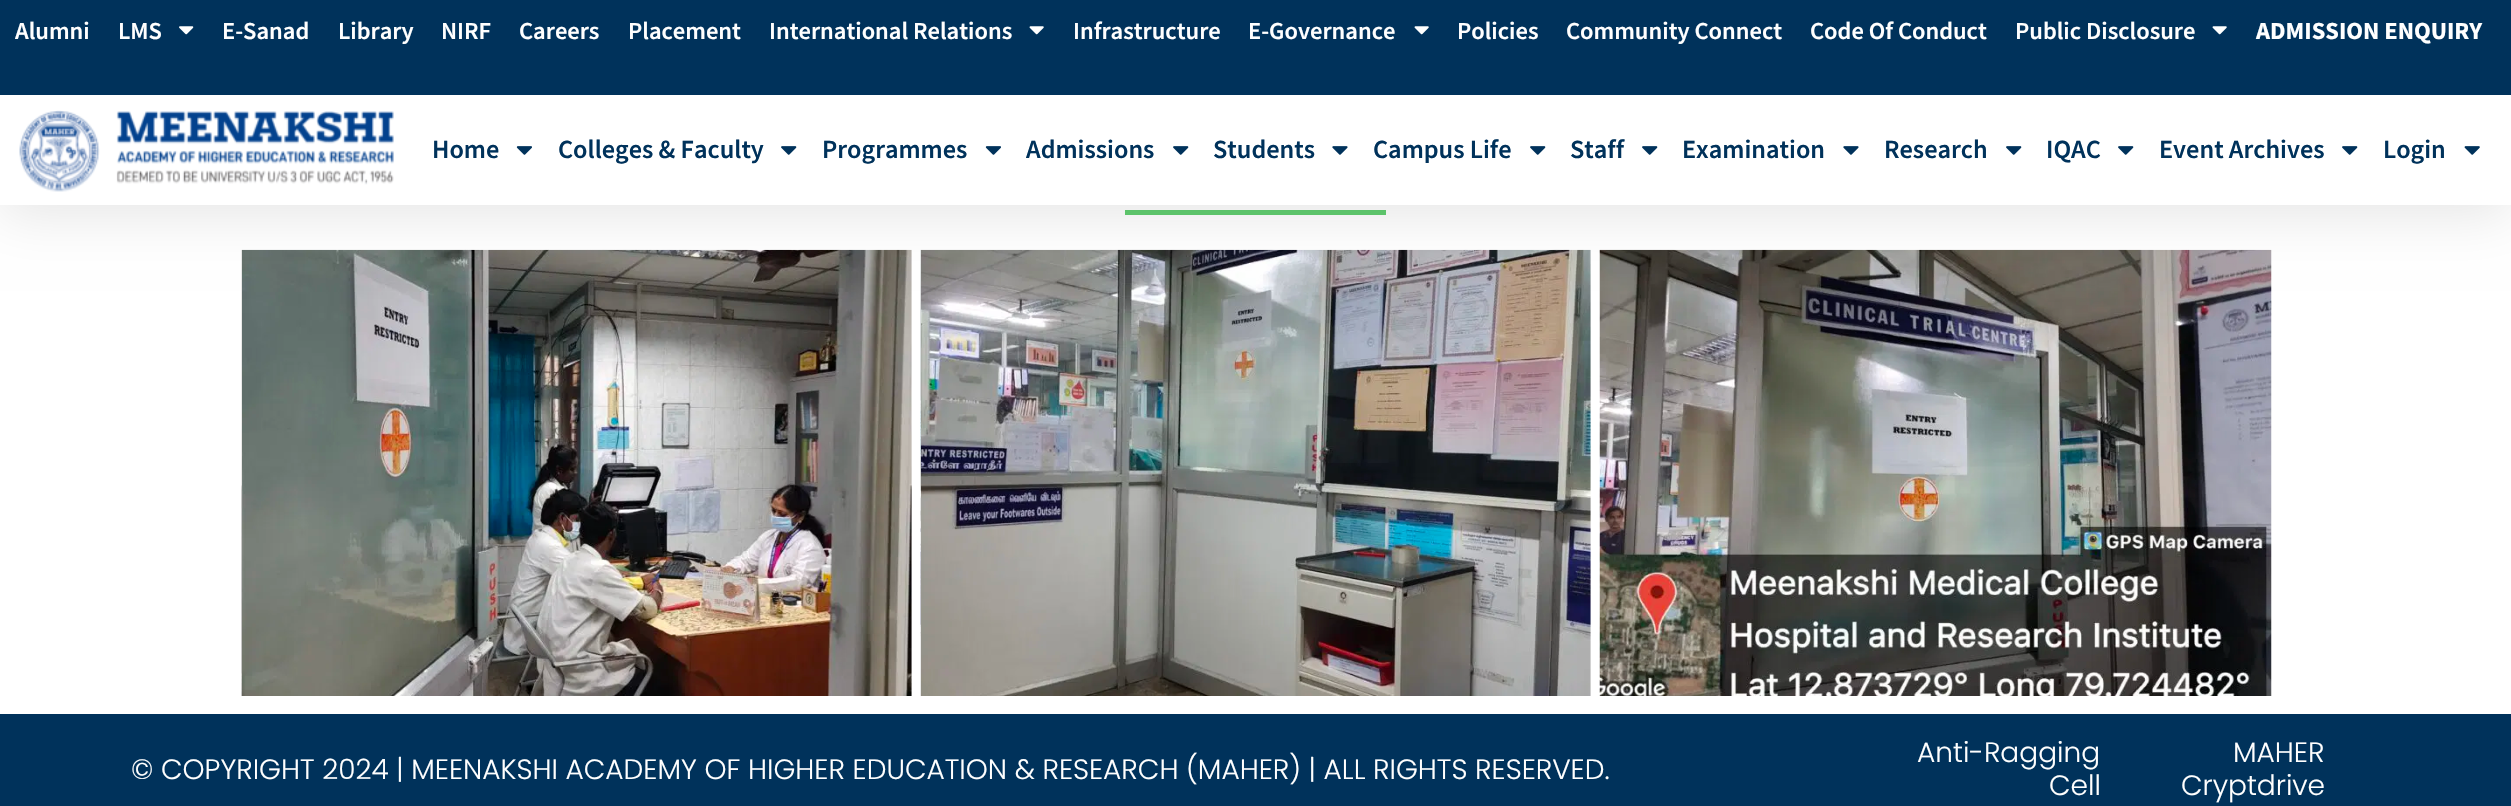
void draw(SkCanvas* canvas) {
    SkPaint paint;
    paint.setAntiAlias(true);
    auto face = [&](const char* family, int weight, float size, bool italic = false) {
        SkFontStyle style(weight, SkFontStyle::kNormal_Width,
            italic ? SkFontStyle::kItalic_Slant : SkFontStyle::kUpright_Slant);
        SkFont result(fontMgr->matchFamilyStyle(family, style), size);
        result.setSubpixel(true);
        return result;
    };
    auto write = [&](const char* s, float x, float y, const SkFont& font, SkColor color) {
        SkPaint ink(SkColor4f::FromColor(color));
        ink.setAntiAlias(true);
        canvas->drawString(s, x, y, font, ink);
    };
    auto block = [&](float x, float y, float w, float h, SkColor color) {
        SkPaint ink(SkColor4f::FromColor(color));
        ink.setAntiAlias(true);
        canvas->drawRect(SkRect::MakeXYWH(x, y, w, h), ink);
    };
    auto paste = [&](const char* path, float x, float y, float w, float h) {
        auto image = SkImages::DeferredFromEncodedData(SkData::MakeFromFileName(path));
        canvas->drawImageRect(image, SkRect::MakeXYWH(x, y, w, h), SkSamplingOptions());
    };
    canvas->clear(SK_ColorWHITE);
    block(1125, 210, 261, 5, SkColorSetRGB(97, 206, 112));
    paste("pic8.png", 241, 249, 671, 447);
    paste("pic9.png", 920, 249, 671, 447);
    paste("pic10.png", 1599, 249, 673, 447);
    paint.setColor(SkColorSetARGB(26, 0, 0, 0));
    paint.setMaskFilter(SkMaskFilter::MakeBlur(kNormal_SkBlurStyle, 26));
    canvas->drawRect(SkRect::MakeXYWH(0, 9, 2511, 205), paint);
    paint.setMaskFilter(nullptr);
    block(0, 0, 2511, 95, SkColorSetRGB(0, 50, 91));
    auto kFont1 = face("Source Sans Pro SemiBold", 600, 24.5f);
    write("Alumni", 15, 39, kFont1, SK_ColorWHITE);
    write("LMS", 118, 39, kFont1, SK_ColorWHITE);
    paste("pic1.png", 179, 26, 15, 9);
    write("E-Sanad", 222, 39, kFont1, SK_ColorWHITE);
    write("Library", 338, 39, kFont1, SK_ColorWHITE);
    write("NIRF", 441, 39, kFont1, SK_ColorWHITE);
    write("Careers", 519, 39, kFont1, SK_ColorWHITE);
    write("Placement", 628, 39, kFont1, SK_ColorWHITE);
    write("International Relations", 769, 39, kFont1, SK_ColorWHITE);
    paste("pic2.png", 1029, 26, 15, 9);
    write("Infrastructure", 1073, 39, kFont1, SK_ColorWHITE);
    write("E-Governance", 1248, 39, kFont1, SK_ColorWHITE);
    paste("pic2.png", 1414, 26, 15, 9);
    write("Policies", 1457, 39, kFont1, SK_ColorWHITE);
    write("Community Connect", 1566, 39, kFont1, SK_ColorWHITE);
    write("Code Of Conduct", 1810, 39, kFont1, SK_ColorWHITE);
    write("Public Disclosure", 2015, 39, kFont1, SK_ColorWHITE);
    paste("pic2.png", 2212, 26, 15, 9);
    auto kFont2 = face("Source Sans Pro", 700, 24.5f);
    write("ADMISSION ENQUIRY", 2256, 39, kFont2, SK_ColorWHITE);
    block(0, 95, 2511, 110, SK_ColorWHITE);
    paste("pic3.png", 19, 110, 375, 82);
    auto kFont3 = face("Source Sans Pro SemiBold", 600, 26.25f);
    write("Home", 432, 158, kFont3, SkColorSetRGB(0, 50, 91));
    paste("pic4.png", 516, 146, 16, 9);
    write("Colleges & Faculty", 558, 158, kFont3, SkColorSetRGB(0, 50, 91));
    paste("pic5.png", 781, 146, 16, 9);
    write("Programmes", 822, 158, kFont3, SkColorSetRGB(0, 50, 91));
    paste("pic4.png", 985, 146, 16, 9);
    write("Admissions", 1026, 158, kFont3, SkColorSetRGB(0, 50, 91));
    paste("pic5.png", 1173, 146, 16, 9);
    write("Students", 1213, 158, kFont3, SkColorSetRGB(0, 50, 91));
    paste("pic6.png", 1332, 146, 16, 9);
    write("Campus Life", 1373, 158, kFont3, SkColorSetRGB(0, 50, 91));
    paste("pic5.png", 1530, 146, 16, 9);
    write("Staff", 1570, 158, kFont3, SkColorSetRGB(0, 50, 91));
    paste("pic5.png", 1642, 146, 16, 9);
    write("Examination", 1682, 158, kFont3, SkColorSetRGB(0, 50, 91));
    paste("pic6.png", 1843, 146, 16, 9);
    write("Research", 1884, 158, kFont3, SkColorSetRGB(0, 50, 91));
    paste("pic5.png", 2006, 146, 16, 9);
    write("IQAC", 2046, 158, kFont3, SkColorSetRGB(0, 50, 91));
    paste("pic5.png", 2118, 146, 16, 9);
    write("Event Archives", 2159, 158, kFont3, SkColorSetRGB(0, 50, 91));
    paste("pic5.png", 2342, 146, 16, 9);
    write("Login", 2383, 158, kFont3, SkColorSetRGB(0, 50, 91));
    paste("pic7.png", 2464, 146, 16, 9);
    block(0, 714, 2511, 92, SkColorSetRGB(0, 50, 91));
    auto kFont4 = face("Poppins", 300, 28);
    write("© COPYRIGHT 2024 | MEENAKSHI ACADEMY OF HIGHER EDUCATION & RESEARCH (MAHER) | ALL RIGHTS RESERVED.", 131, 779, kFont4, SK_ColorWHITE);
    write("Anti-Ragging", 1917, 762, kFont4, SK_ColorWHITE);
    write("Cell", 2049, 795, kFont4, SK_ColorWHITE);
    write("MAHER", 2233, 762, kFont4, SK_ColorWHITE);
    write("Cryptdrive", 2181, 795, kFont4, SK_ColorWHITE);
}
